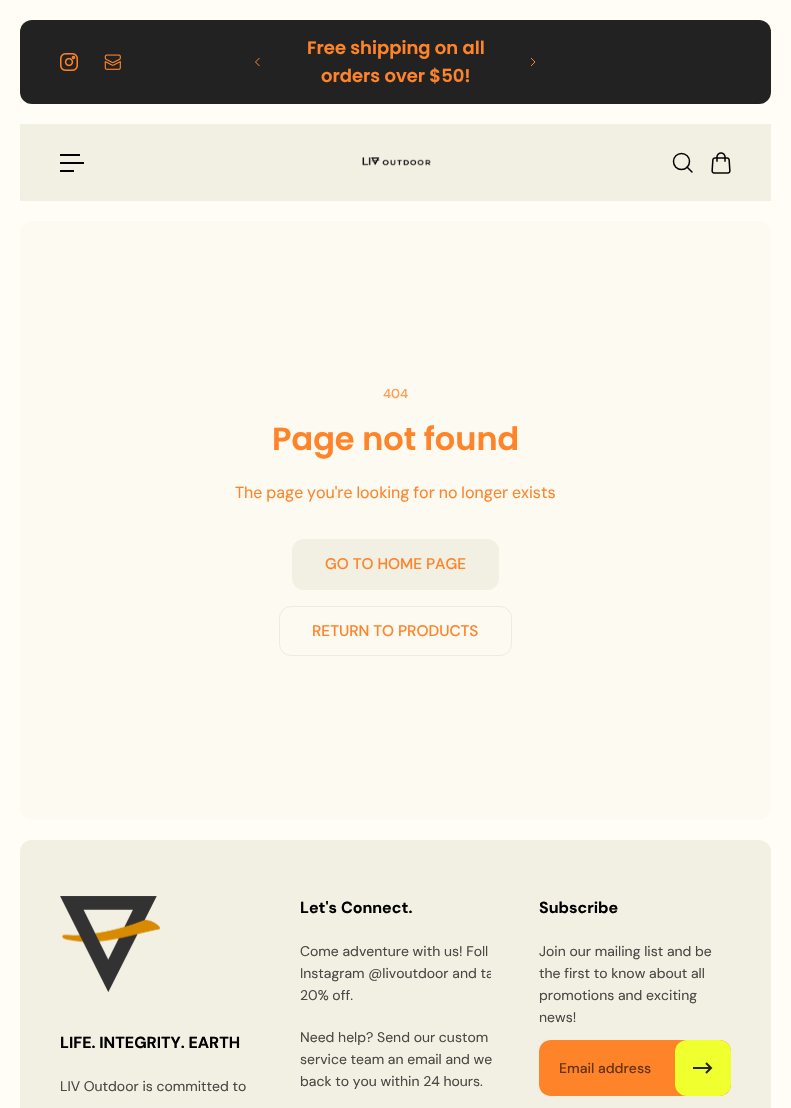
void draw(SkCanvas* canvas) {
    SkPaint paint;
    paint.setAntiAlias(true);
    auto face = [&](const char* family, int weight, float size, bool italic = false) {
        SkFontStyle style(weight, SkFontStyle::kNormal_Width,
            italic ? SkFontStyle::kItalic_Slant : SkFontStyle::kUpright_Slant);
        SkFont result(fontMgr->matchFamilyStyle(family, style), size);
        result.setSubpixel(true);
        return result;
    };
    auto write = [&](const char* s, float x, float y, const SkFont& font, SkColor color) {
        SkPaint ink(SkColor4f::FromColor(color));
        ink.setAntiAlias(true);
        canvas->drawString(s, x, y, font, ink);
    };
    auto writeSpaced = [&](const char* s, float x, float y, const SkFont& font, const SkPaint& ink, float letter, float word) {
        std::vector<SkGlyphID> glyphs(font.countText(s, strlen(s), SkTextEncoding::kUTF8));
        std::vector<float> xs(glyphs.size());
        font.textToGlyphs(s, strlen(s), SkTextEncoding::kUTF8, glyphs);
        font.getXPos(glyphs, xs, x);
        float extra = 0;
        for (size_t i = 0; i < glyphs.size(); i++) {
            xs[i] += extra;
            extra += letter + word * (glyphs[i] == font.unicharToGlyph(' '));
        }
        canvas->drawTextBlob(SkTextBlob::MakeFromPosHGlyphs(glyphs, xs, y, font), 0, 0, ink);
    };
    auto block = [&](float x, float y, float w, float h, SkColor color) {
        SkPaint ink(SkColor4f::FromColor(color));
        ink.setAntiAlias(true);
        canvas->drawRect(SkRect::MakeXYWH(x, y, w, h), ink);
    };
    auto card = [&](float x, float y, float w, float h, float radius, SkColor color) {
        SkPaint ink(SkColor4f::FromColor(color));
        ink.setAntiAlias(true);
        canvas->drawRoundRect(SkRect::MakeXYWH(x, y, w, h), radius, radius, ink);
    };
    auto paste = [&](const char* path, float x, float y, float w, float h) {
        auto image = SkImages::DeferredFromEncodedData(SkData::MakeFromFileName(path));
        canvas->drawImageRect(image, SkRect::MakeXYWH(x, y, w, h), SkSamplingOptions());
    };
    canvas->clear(SkColorSetRGB(255, 253, 245));
    card(20, 20, 751, 84, 12, SkColorSetRGB(34, 34, 34));
    paste("pic1.png", 60, 53, 18, 18);
    paste("pic2.png", 104, 54, 17, 16);
    paint.setStyle(SkPaint::kStroke_Style);
    paint.setStrokeWidth(1);
    paint.setColor(SkColorSetRGB(255, 131, 41));
    canvas->drawPath(SkPathBuilder().moveTo(259.5f, 58).lineTo(255.5f, 62).lineTo(259.5f, 66).detach(), paint);
    auto kFont1 = face("Poppins", 600, 18);
    write("Free shipping on all", 307, 54, kFont1, SkColorSetRGB(255, 131, 41));
    write("orders over $50!", 321, 82, kFont1, SkColorSetRGB(255, 131, 41));
    canvas->drawPath(SkPathBuilder().moveTo(531, 58).lineTo(535, 62).lineTo(531, 66).detach(), paint);
    block(20, 124, 751, 77, SkColorSetRGB(242, 239, 227));
    block(60, 154, 20, 2, SK_ColorBLACK);
    block(60, 162, 24, 2, SK_ColorBLACK);
    block(60, 170, 14, 2, SK_ColorBLACK);
    paste("pic3.png", 362, 157, 69, 9);
    paint.setStrokeWidth(1.5f);
    paint.setColor(SK_ColorBLACK);
    canvas->drawCircle(681.5f, 161.5f, 8, paint);
    paint.setStrokeCap(SkPaint::kRound_Cap);
    paint.setStrokeJoin(SkPaint::kRound_Join);
    canvas->drawPath(SkPathBuilder().moveTo(687, 167).lineTo(692, 172).detach(), paint);
    paste("pic4.png", 711, 152, 20, 22);
    card(20, 221, 751, 599, 12, SkColorSetRGB(252, 250, 241));
    auto kFont2 = face("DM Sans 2", 500, 13);
    write("404", 383, 398, kFont2, SkColorSetRGB(254, 155, 81));
    auto kFont3 = face("Poppins", 600, 32);
    write("Page not found", 272, 450, kFont3, SkColorSetRGB(255, 131, 41));
    auto kFont4 = face("DM Sans 2", 400, 16);
    paint.setStyle(SkPaint::kFill_Style);
    paint.setColor(SkColorSetRGB(255, 131, 41));
    writeSpaced("The page you're looking for no longer exists", 235, 498, kFont4, paint, 0, -0.5f);
    card(292, 539, 207, 51, 12, SkColorSetRGB(242, 239, 227));
    auto kFont5 = face("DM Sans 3", 500, 15.4f);
    write("GO TO HOME PAGE", 325, 569, kFont5, SkColorSetRGB(255, 131, 41));
    paint.setStyle(SkPaint::kStroke_Style);
    paint.setStrokeWidth(1);
    paint.setStrokeCap(SkPaint::kButt_Cap);
    paint.setStrokeJoin(SkPaint::kMiter_Join);
    paint.setColor(SkColorSetRGB(239, 235, 221));
    canvas->drawRoundRect(SkRect::MakeXYWH(279.5f, 606.5f, 232, 49), 11.5f, 11.5f, paint);
    write("RETURN TO PRODUCTS", 312, 636, kFont5, SkColorSetRGB(255, 131, 41));
    card(20, 840, 751, 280, 12, SkColorSetRGB(242, 239, 227));
    paste("pic5.png", 60, 896, 100, 96);
    auto kFont6 = face("DM Sans", 700, 16);
    write("LIFE. INTEGRITY. EARTH", 60, 1048, kFont6, SK_ColorBLACK);
    auto kFont7 = face("DM Sans", 400, 14);
    write("LIV Outdoor is committed to", 60, 1091, kFont7, SkColorSetRGB(73, 72, 68));
    write("Let's Connect.", 300, 913, kFont6, SK_ColorBLACK);
    write("Come adventure with us! Foll", 300, 956, kFont7, SkColorSetRGB(73, 72, 68));
    canvas->save();
    canvas->clipRect(SkRect::MakeXYWH(300, 940, 191, 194));
    write("Instagram @livoutdoor and ta", 300, 978, kFont7, SkColorSetRGB(73, 72, 68));
    canvas->restore();
    write("20% off.", 300, 1000, kFont7, SkColorSetRGB(73, 72, 68));
    write("Need help? Send our custom", 300, 1042, kFont7, SkColorSetRGB(73, 72, 68));
    write("service team an email and we", 300, 1064, kFont7, SkColorSetRGB(73, 72, 68));
    write("back to you within 24 hours.", 300, 1086, kFont7, SkColorSetRGB(73, 72, 68));
    write("Subscribe", 539, 913, kFont6, SK_ColorBLACK);
    write("Join our mailing list and be", 539, 956, kFont7, SkColorSetRGB(73, 72, 68));
    write("the first to know about all", 539, 978, kFont7, SkColorSetRGB(73, 72, 68));
    write("promotions and exciting", 539, 1000, kFont7, SkColorSetRGB(73, 72, 68));
    write("news!", 539, 1022, kFont7, SkColorSetRGB(73, 72, 68));
    paint.setStyle(SkPaint::kFill_Style);
    paint.setColor(SkColorSetRGB(255, 131, 41));
    canvas->drawPath(SkPathBuilder().moveTo(551, 1040).lineTo(719, 1040).cubicTo(726, 1040, 731, 1045, 731, 1052).lineTo(731, 1084).cubicTo(731, 1091, 726, 1096, 719, 1096).lineTo(551, 1096).cubicTo(544, 1096, 539, 1091, 539, 1084).lineTo(539, 1052).cubicTo(539, 1045, 544, 1040, 551, 1040).close().detach(), paint);
    auto kFont8 = face("DM Sans", 500, 14);
    write("Email address", 559, 1073, kFont8, SkColorSetRGB(102, 52, 16));
    card(675, 1040, 56, 56, 12, SkColorSetRGB(240, 255, 46));
    block(693, 1067, 18, 2, SkColorSetRGB(34, 34, 34));
    paint.setStyle(SkPaint::kStroke_Style);
    paint.setStrokeWidth(2);
    paint.setColor(SkColorSetRGB(34, 34, 34));
    canvas->drawPath(SkPathBuilder().moveTo(706, 1063).lineTo(711, 1068).lineTo(706, 1073).detach(), paint);
}
